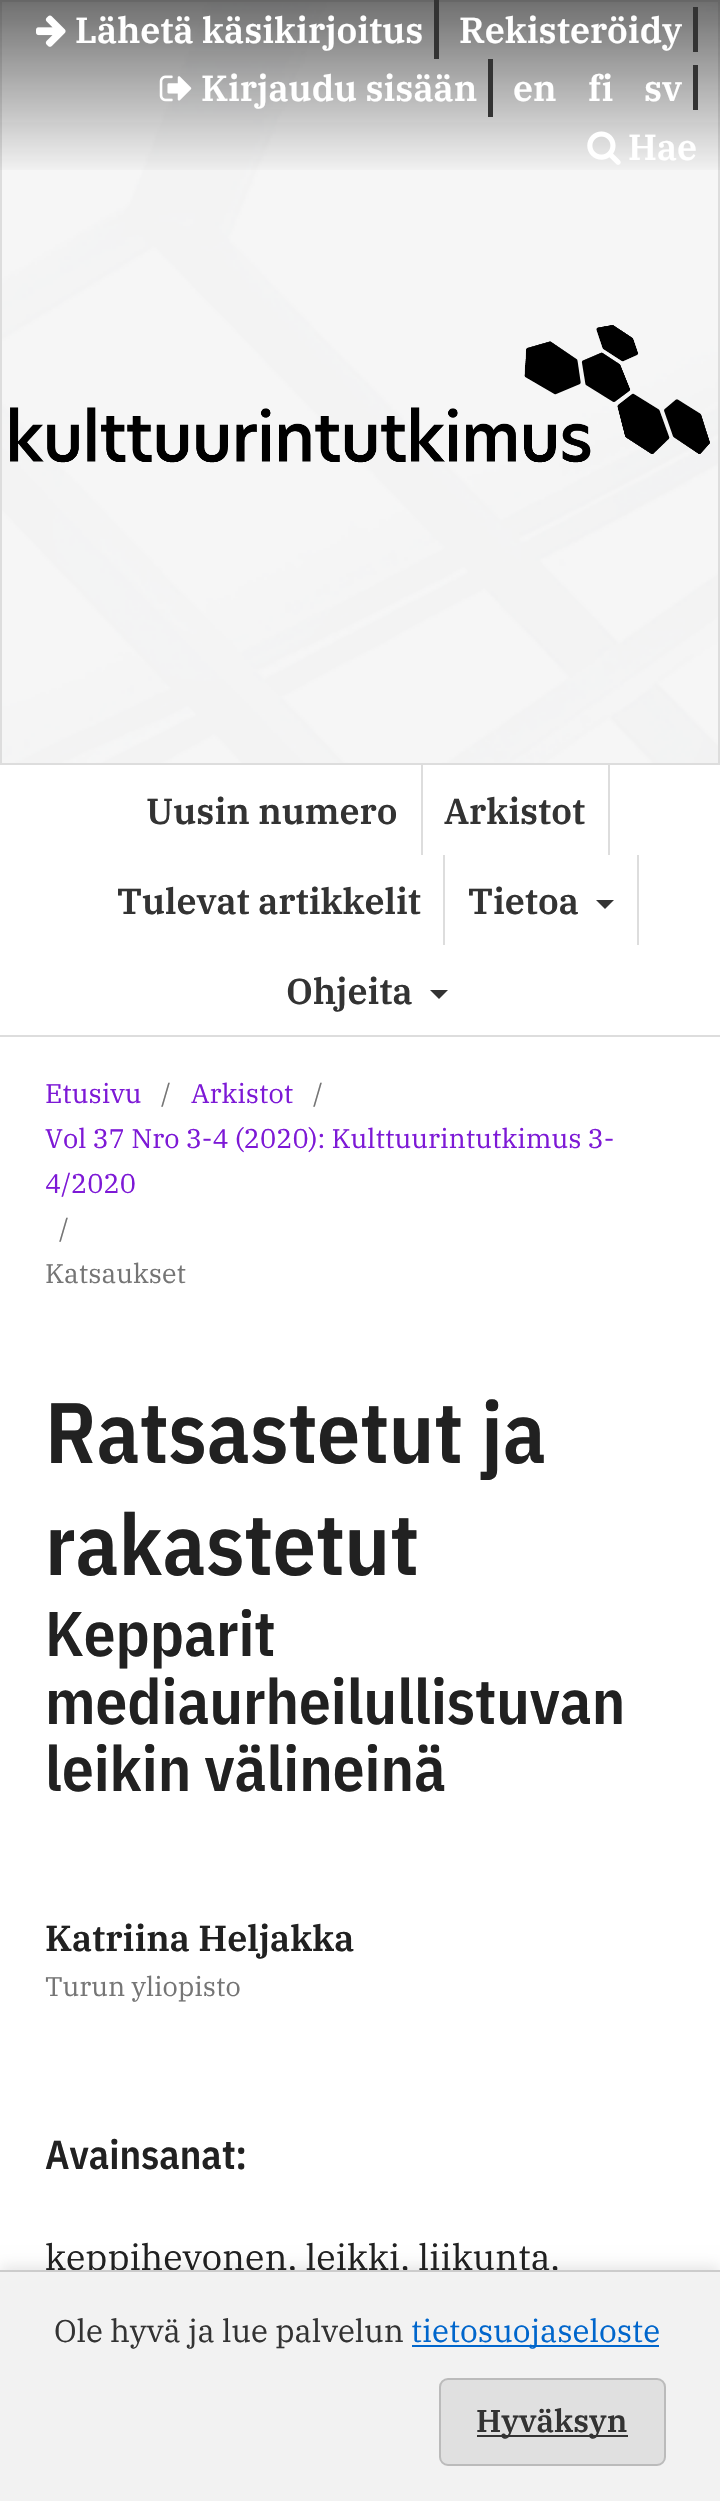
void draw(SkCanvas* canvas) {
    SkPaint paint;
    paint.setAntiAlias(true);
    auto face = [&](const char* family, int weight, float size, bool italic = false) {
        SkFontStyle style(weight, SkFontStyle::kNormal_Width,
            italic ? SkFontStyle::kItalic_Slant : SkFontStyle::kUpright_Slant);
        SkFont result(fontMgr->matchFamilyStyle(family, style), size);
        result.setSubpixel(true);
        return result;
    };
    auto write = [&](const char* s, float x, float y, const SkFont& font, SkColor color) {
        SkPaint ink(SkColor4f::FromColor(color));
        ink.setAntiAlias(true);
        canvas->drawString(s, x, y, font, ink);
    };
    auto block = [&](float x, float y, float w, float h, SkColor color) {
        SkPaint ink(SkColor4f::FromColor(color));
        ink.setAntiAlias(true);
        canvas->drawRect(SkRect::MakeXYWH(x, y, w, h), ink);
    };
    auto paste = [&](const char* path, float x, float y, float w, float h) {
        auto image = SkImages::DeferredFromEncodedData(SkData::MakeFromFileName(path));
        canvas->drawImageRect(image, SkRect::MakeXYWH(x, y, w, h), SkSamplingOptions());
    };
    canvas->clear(SK_ColorWHITE);
    paste("pic1.png", 2, 2, 716, 761);
    paint.setStyle(SkPaint::kStroke_Style);
    paint.setStrokeWidth(2);
    paint.setColor(SkColorSetRGB(221, 221, 221));
    canvas->drawRect(SkRect::MakeXYWH(1, 1, 718, 763), paint);
    paint.setStyle(SkPaint::kFill_Style);
    {
        const SkColor colors[] = {SkColorSetARGB(166, 38, 38, 38), SkColorSetARGB(0, 38, 38, 38)};
        const float stops[] = {0, 1};
        const SkPoint ends[] = {{360, 0}, {360, 176}};
        paint.setShader(SkGradientShader::MakeLinear(ends, colors, stops, 2, SkTileMode::kClamp));
        paint.setAlpha(255);
    }
    canvas->drawRect(SkRect::MakeXYWH(0, 0, 720, 170), paint);
    block(434, 0, 5, 59, SkColorSetRGB(51, 51, 51));
    paste("pic2.png", 36, 15, 30, 32);
    auto kFont1 = face("IBM Plex Serif", 600, 36);
    write("Lähetä käsikirjoitus", 75, 43, kFont1, SK_ColorWHITE);
    block(693, 7, 5, 45, SkColorSetRGB(51, 51, 51));
    write("Rekisteröidy", 459, 43, kFont1, SK_ColorWHITE);
    block(488, 59, 5, 58, SkColorSetRGB(51, 51, 51));
    paste("pic3.png", 159, 75, 33, 27);
    write("Kirjaudu sisään", 201, 101, kFont1, SK_ColorWHITE);
    block(693, 65, 5, 45, SkColorSetRGB(51, 51, 51));
    write("en", 513, 101, kFont1, SK_ColorWHITE);
    write("fi", 588, 101, kFont1, SK_ColorWHITE);
    write("sv", 644, 101, kFont1, SK_ColorWHITE);
    paste("pic4.png", 587, 131, 34, 34);
    write("Hae", 628, 160, kFont1, SK_ColorWHITE);
    paste("pic5.png", 10, 325, 700, 138);
    block(0, 1035, 720, 2, SkColorSetRGB(221, 221, 221));
    block(421, 765, 2, 90, SkColorSetRGB(221, 221, 221));
    write("Uusin numero", 146, 824, kFont1, SkColorSetRGB(51, 51, 51));
    block(608, 765, 2, 90, SkColorSetRGB(221, 221, 221));
    write("Arkistot", 444, 824, kFont1, SkColorSetRGB(51, 51, 51));
    block(443, 855, 2, 90, SkColorSetRGB(221, 221, 221));
    write("Tulevat artikkelit", 117, 914, kFont1, SkColorSetRGB(51, 51, 51));
    block(637, 855, 2, 90, SkColorSetRGB(221, 221, 221));
    write("Tietoa", 468, 914, kFont1, SkColorSetRGB(51, 51, 51));
    paint.setShader(nullptr);
    paint.setColor(SkColorSetRGB(51, 51, 51));
    canvas->drawPath(SkPathBuilder().moveTo(596, 900).lineTo(614, 900).lineTo(605, 909).close().detach(), paint);
    write("Ohjeita", 286, 1004, kFont1, SkColorSetRGB(51, 51, 51));
    canvas->drawPath(SkPathBuilder().moveTo(430, 990).lineTo(448, 990).lineTo(439, 999).close().detach(), paint);
    auto kFont2 = face("IBM Plex Serif", 400, 27);
    write("Etusivu", 45, 1103, kFont2, SkColorSetRGB(125, 25, 214));
    write("/", 161, 1103, kFont2, SkColorSetRGB(117, 117, 117));
    write("Arkistot", 191, 1103, kFont2, SkColorSetRGB(125, 25, 214));
    write("/", 313, 1103, kFont2, SkColorSetRGB(117, 117, 117));
    write("Vol 37 Nro 3-4 (2020): Kulttuurintutkimus 3-", 45, 1148, kFont2, SkColorSetRGB(125, 25, 214));
    write("4/2020", 45, 1193, kFont2, SkColorSetRGB(125, 25, 214));
    write("/", 59, 1238, kFont2, SkColorSetRGB(117, 117, 117));
    write("Katsaukset", 45, 1283, kFont2, SkColorSetRGB(117, 117, 117));
    auto kFont3 = face("IBM Plex Sans Condensed", 600, 85.5f);
    write("Ratsastetut ja", 45, 1463, kFont3, SkColorSetRGB(33, 33, 33));
    write("rakastetut", 45, 1575, kFont3, SkColorSetRGB(33, 33, 33));
    auto kFont4 = face("IBM Plex Sans Condensed", 600, 63);
    write("Kepparit", 45, 1656, kFont4, SkColorSetRGB(33, 33, 33));
    write("mediaurheilullistuvan", 45, 1724, kFont4, SkColorSetRGB(33, 33, 33));
    write("leikin välineinä", 45, 1791, kFont4, SkColorSetRGB(33, 33, 33));
    write("Katriina Heljakka", 45, 1951, kFont1, SkColorSetRGB(33, 33, 33));
    write("Turun yliopisto", 45, 1996, kFont2, SkColorSetRGB(117, 117, 117));
    auto kFont5 = face("IBM Plex Sans Condensed", 600, 40.5f);
    write("Avainsanat:", 45, 2169, kFont5, SkColorSetRGB(33, 33, 33));
    auto kFont6 = face("IBM Plex Serif", 400, 36);
    write("keppihevonen, leikki, liikunta,", 45, 2270, kFont6, SkColorSetRGB(33, 33, 33));
    paint.setColor(SkColorSetARGB(26, 0, 0, 0));
    paint.setMaskFilter(SkMaskFilter::MakeBlur(kNormal_SkBlurStyle, 7));
    canvas->drawRect(SkRect::MakeXYWH(0, 2266, 720, 232), paint);
    paint.setMaskFilter(nullptr);
    block(0, 2272, 720, 229, SkColorSetRGB(242, 242, 242));
    block(0, 2270, 720, 2, SkColorSetRGB(204, 204, 204));
    auto kFont7 = face("IBM Plex Serif", 400, 31.5f);
    write("Ole hyvä ja lue palvelun", 54, 2342, kFont7, SkColorSetRGB(51, 51, 51));
    block(412, 2345, 247, 2, SkColorSetRGB(0, 102, 204));
    write("tietosuojaseloste", 411, 2342, kFont7, SkColorSetRGB(0, 102, 204));
    paint.setColor(SkColorSetRGB(224, 224, 224));
    canvas->drawRoundRect(SkRect::MakeXYWH(440, 2379, 225, 86), 8, 8, paint);
    paint.setStyle(SkPaint::kStroke_Style);
    paint.setColor(SkColorSetRGB(187, 187, 187));
    canvas->drawRoundRect(SkRect::MakeXYWH(440, 2379, 225, 86), 8, 8, paint);
    block(477, 2435, 151, 2, SkColorSetRGB(51, 51, 51));
    auto kFont8 = face("IBM Plex Serif", 600, 31.5f);
    write("Hyväksyn", 476, 2432, kFont8, SkColorSetRGB(51, 51, 51));
}
